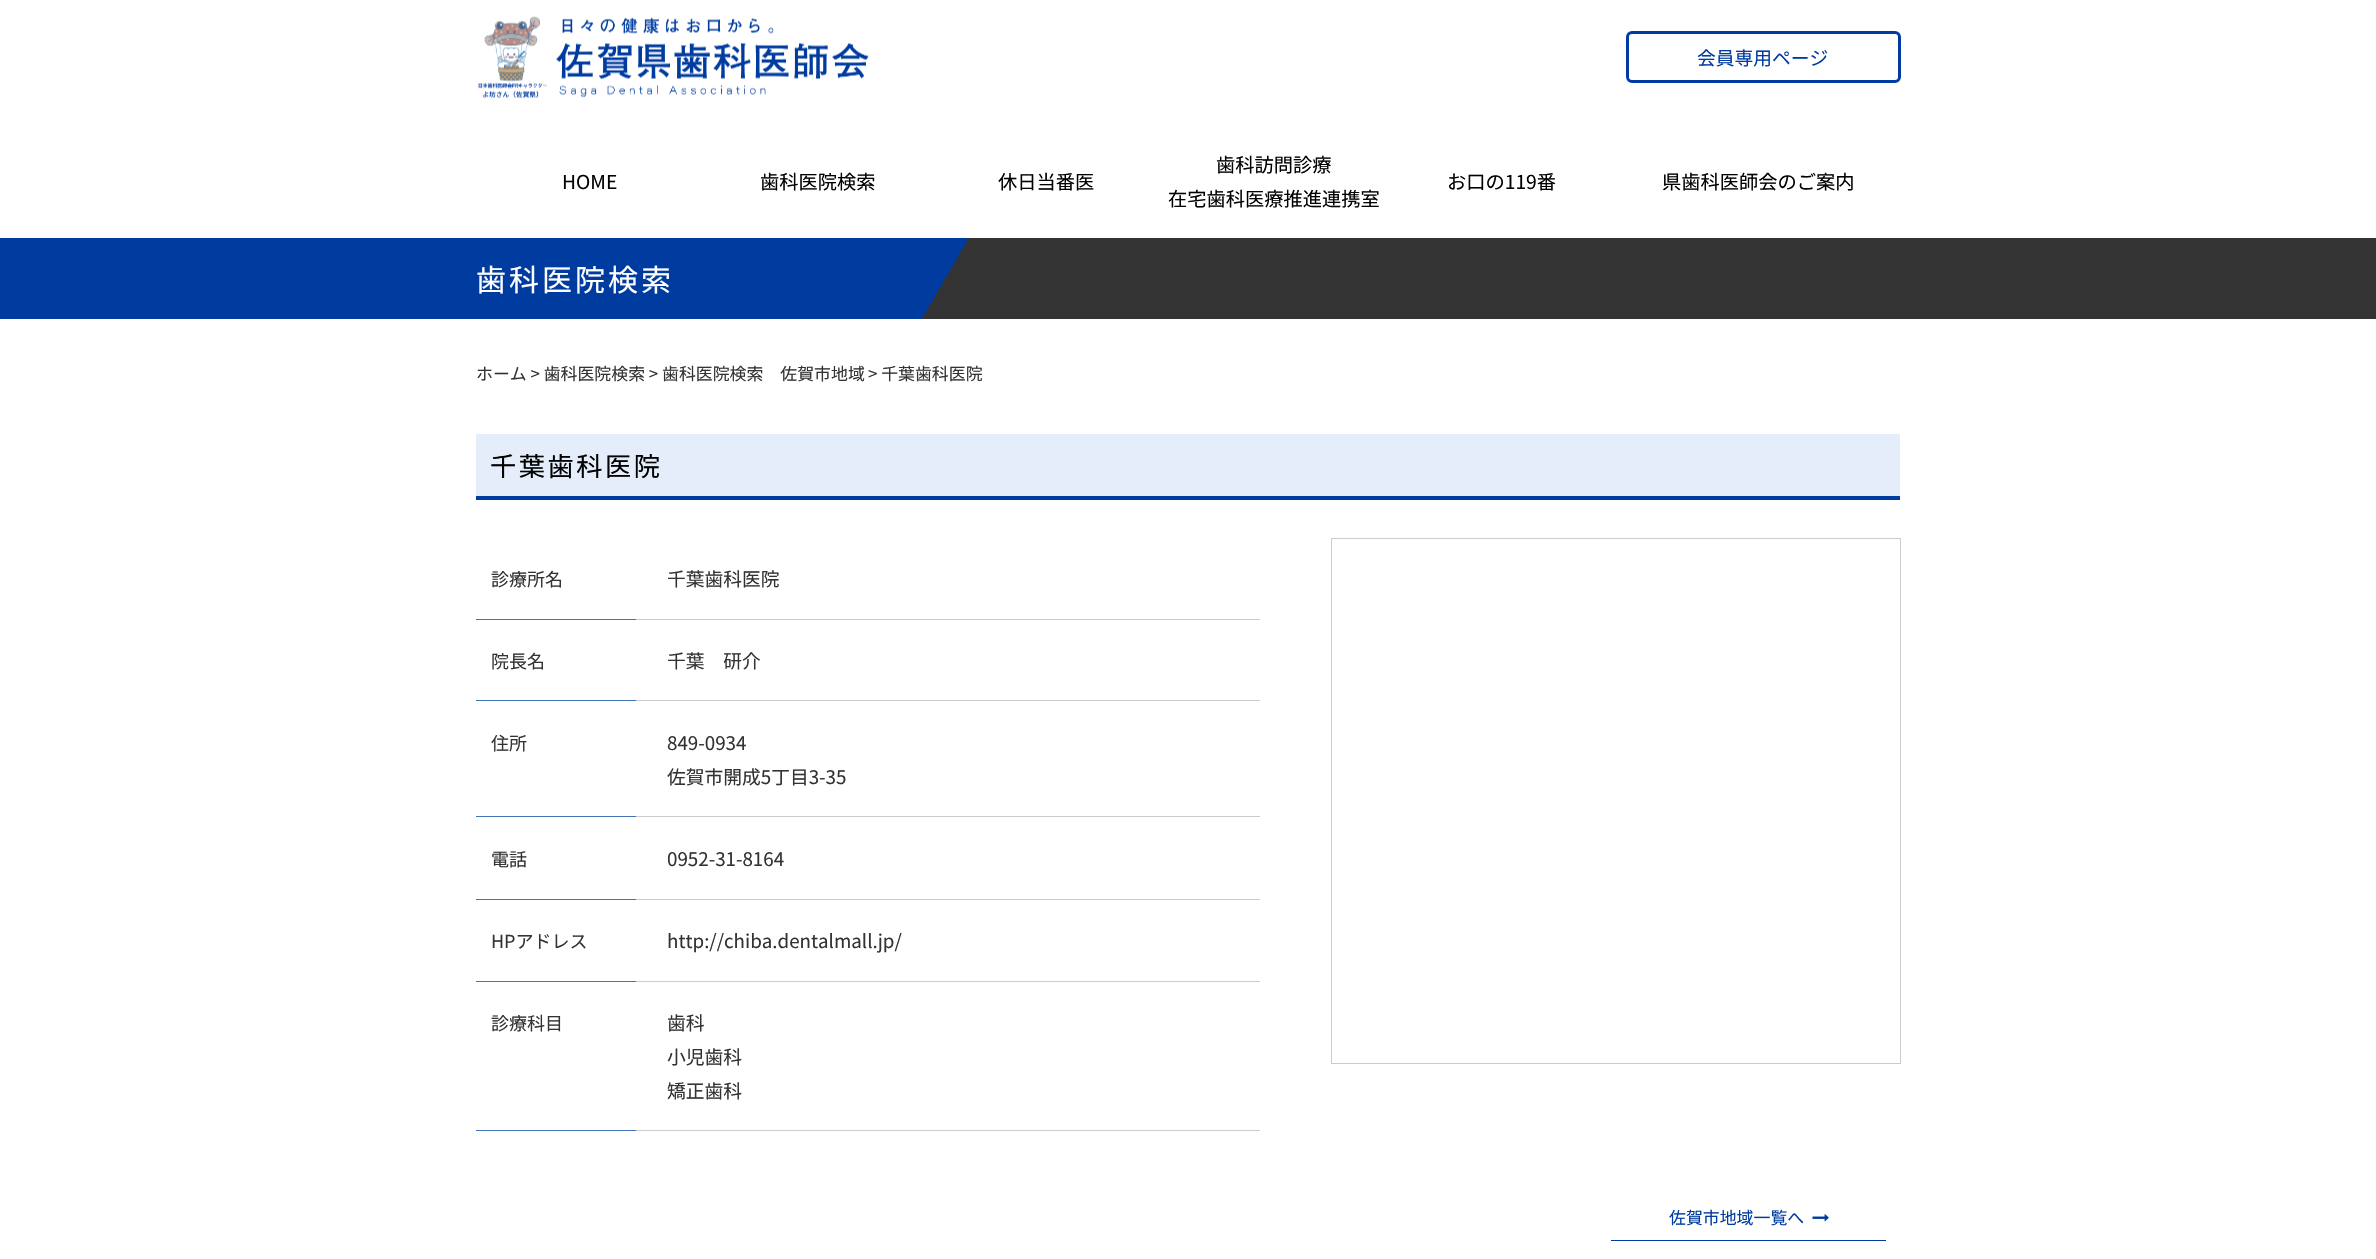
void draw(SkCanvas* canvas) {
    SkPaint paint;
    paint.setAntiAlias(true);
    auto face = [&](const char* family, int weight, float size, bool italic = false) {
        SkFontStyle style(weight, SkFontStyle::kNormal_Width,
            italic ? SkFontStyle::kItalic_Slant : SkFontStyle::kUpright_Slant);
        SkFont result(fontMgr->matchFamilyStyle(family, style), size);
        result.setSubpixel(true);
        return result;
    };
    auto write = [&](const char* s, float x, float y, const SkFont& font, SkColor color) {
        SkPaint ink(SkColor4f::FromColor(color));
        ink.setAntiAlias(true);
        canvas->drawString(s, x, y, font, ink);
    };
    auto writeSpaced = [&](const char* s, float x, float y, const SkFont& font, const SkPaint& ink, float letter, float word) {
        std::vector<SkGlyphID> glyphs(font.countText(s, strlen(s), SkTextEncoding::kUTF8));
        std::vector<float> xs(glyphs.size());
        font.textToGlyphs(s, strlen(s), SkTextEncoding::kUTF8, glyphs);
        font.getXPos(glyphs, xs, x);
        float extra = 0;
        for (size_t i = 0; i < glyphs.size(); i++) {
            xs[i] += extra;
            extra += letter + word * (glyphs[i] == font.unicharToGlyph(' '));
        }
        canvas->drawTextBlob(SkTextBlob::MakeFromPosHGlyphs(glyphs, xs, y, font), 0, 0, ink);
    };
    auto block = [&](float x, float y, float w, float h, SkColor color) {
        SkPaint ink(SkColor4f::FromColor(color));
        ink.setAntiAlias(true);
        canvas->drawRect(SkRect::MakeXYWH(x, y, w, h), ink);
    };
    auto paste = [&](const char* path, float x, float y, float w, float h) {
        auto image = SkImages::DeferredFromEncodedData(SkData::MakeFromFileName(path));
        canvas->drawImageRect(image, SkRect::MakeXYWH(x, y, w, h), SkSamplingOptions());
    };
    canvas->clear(SK_ColorWHITE);
    paste("pic1.png", 478, 16, 391, 82);
    paint.setStyle(SkPaint::kStroke_Style);
    paint.setStrokeWidth(3);
    paint.setColor(SkColorSetRGB(0, 60, 160));
    canvas->drawRoundRect(SkRect::MakeXYWH(1627.5f, 32.5f, 272, 49), 4.5f, 4.5f, paint);
    auto kFont1 = face("Noto Sans JP", 100, 18.75f);
    write("会員専用ページ", 1697, 65, kFont1, SkColorSetRGB(0, 60, 160));
    auto kFont2 = face("Noto Sans JP", 100, 19.25f);
    write("HOME", 562, 189, kFont2, SkColorSetRGB(1, 1, 1));
    write("歯科医院検索", 760, 189, kFont2, SkColorSetRGB(1, 1, 1));
    write("休日当番医", 998, 189, kFont2, SkColorSetRGB(1, 1, 1));
    write("歯科訪問診療", 1216, 172, kFont2, SkColorSetRGB(1, 1, 1));
    write("在宅歯科医療推進連携室", 1168, 206, kFont2, SkColorSetRGB(1, 1, 1));
    write("お口の119番", 1447, 189, kFont2, SkColorSetRGB(1, 1, 1));
    write("県歯科医師会のご案内", 1662, 189, kFont2, SkColorSetRGB(1, 1, 1));
    paint.setStyle(SkPaint::kFill_Style);
    {
        const SkColor colors[] = {SkColorSetRGB(0, 60, 160), SkColorSetRGB(0, 60, 160), SkColorSetRGB(51, 51, 51), SkColorSetRGB(51, 51, 51)};
        const float stops[] = {0, 0.4f, 0.4f, 1};
        const SkPoint ends[] = {{279, -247}, {2097, 803}};
        paint.setShader(SkGradientShader::MakeLinear(ends, colors, stops, 4, SkTileMode::kClamp));
        paint.setAlpha(255);
    }
    canvas->drawRect(SkRect::MakeXYWH(0, 238, 2376, 81), paint);
    auto kFont3 = face("Noto Sans JP", 100, 30);
    paint.setShader(nullptr);
    paint.setColor(SK_ColorWHITE);
    writeSpaced("歯科医院検索", 476, 291, kFont3, paint, 3, 0);
    auto kFont4 = face("Noto Sans JP", 100, 16.9f);
    write("ホーム > 歯科医院検索 > 歯科医院検索　佐賀市地域", 476, 380, kFont4, SkColorSetRGB(51, 51, 51));
    write("> 千葉歯科医院", 868, 380, kFont4, SkColorSetRGB(51, 51, 51));
    block(476, 434, 1424, 62, SkColorSetRGB(228, 237, 249));
    block(476, 496, 1424, 4, SkColorSetRGB(0, 60, 160));
    auto kFont5 = face("Noto Sans JP", 100, 26.25f);
    paint.setColor(SkColorSetRGB(1, 1, 1));
    writeSpaced("千葉歯科医院", 490, 476, kFont5, paint, 2.5f, 0);
    block(635, 619, 625, 1, SkColorSetRGB(204, 204, 204));
    block(476, 619, 160, 1, SkColorSetRGB(66, 116, 188));
    auto kFont6 = face("Noto Sans JP", 100, 18);
    write("診療所名", 491, 586, kFont6, SkColorSetRGB(51, 51, 51));
    write("千葉歯科医院", 667, 586, kFont1, SkColorSetRGB(51, 51, 51));
    block(635, 700, 625, 1, SkColorSetRGB(204, 204, 204));
    block(476, 700, 160, 1, SkColorSetRGB(66, 116, 188));
    write("院長名", 491, 668, kFont6, SkColorSetRGB(51, 51, 51));
    write("千葉　研介", 667, 668, kFont1, SkColorSetRGB(51, 51, 51));
    block(635, 816, 625, 1, SkColorSetRGB(204, 204, 204));
    block(476, 816, 160, 1, SkColorSetRGB(66, 116, 188));
    write("住所", 491, 750, kFont6, SkColorSetRGB(51, 51, 51));
    write("849-0934", 667, 750, kFont1, SkColorSetRGB(51, 51, 51));
    write("佐賀市開成5丁目3-35", 667, 784, kFont1, SkColorSetRGB(51, 51, 51));
    block(635, 899, 625, 1, SkColorSetRGB(204, 204, 204));
    block(476, 899, 160, 1, SkColorSetRGB(66, 116, 188));
    write("電話", 491, 866, kFont6, SkColorSetRGB(51, 51, 51));
    write("0952-31-8164", 667, 866, kFont1, SkColorSetRGB(51, 51, 51));
    block(635, 981, 625, 1, SkColorSetRGB(204, 204, 204));
    block(476, 981, 160, 1, SkColorSetRGB(66, 116, 188));
    write("HPアドレス", 491, 948, kFont6, SkColorSetRGB(51, 51, 51));
    write("http://chiba.dentalmall.jp/", 667, 948, kFont1, SkColorSetRGB(51, 51, 51));
    block(635, 1130, 625, 1, SkColorSetRGB(204, 204, 204));
    block(476, 1130, 160, 1, SkColorSetRGB(66, 116, 188));
    write("診療科目", 491, 1030, kFont6, SkColorSetRGB(51, 51, 51));
    write("歯科", 667, 1030, kFont1, SkColorSetRGB(51, 51, 51));
    write("小児歯科", 667, 1064, kFont1, SkColorSetRGB(51, 51, 51));
    write("矯正歯科", 667, 1098, kFont1, SkColorSetRGB(51, 51, 51));
    paint.setStyle(SkPaint::kStroke_Style);
    paint.setStrokeWidth(1);
    paint.setColor(SkColorSetRGB(204, 204, 204));
    canvas->drawRect(SkRect::MakeXYWH(1331.5f, 538.5f, 569, 525), paint);
    block(1611, 1240, 275, 1, SkColorSetRGB(0, 60, 160));
    write("佐賀市地域一覧へ", 1669, 1224, kFont4, SkColorSetRGB(0, 60, 160));
    paste("pic2.png", 1812, 1214, 17, 8);
}
